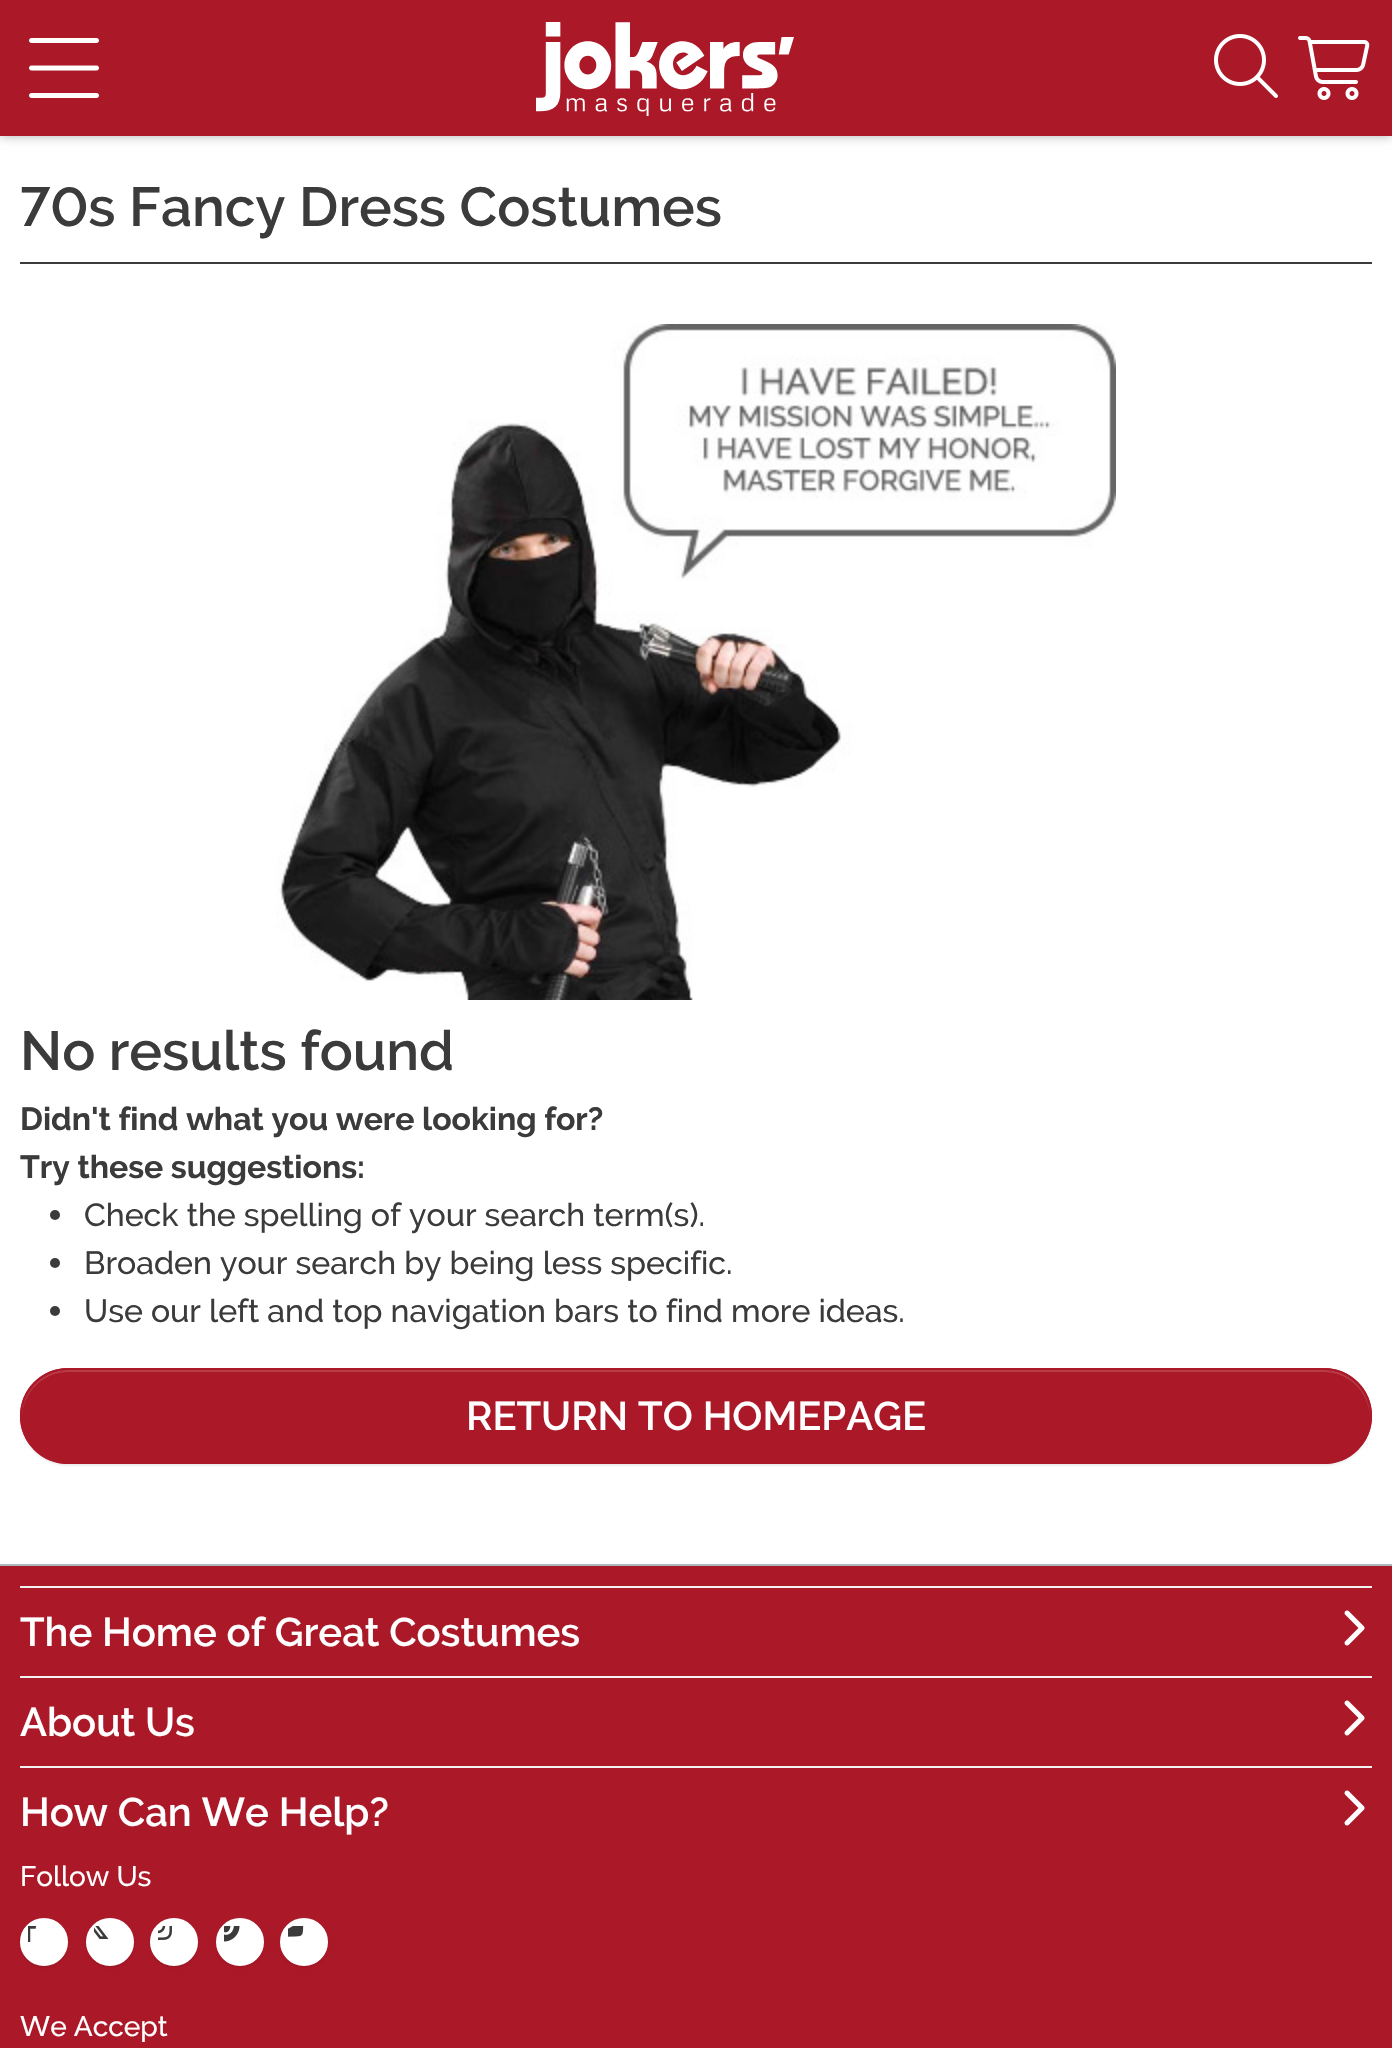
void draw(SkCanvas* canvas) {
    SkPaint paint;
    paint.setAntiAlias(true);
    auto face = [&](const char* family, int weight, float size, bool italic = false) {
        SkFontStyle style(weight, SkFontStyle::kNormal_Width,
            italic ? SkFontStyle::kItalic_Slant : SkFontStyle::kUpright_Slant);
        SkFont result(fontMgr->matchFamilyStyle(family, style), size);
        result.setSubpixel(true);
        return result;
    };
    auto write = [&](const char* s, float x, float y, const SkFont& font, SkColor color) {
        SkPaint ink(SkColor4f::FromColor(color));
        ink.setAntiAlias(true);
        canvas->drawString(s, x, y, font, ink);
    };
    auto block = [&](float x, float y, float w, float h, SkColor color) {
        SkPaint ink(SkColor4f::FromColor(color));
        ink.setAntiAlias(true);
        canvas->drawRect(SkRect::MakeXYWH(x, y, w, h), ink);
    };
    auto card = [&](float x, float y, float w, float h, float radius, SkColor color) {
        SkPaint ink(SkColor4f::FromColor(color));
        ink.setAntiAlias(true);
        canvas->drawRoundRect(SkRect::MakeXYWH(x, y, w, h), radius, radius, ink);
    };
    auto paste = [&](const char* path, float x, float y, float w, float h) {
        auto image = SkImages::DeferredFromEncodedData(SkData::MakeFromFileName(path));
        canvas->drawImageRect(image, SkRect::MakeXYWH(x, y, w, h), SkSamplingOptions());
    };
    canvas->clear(SK_ColorWHITE);
    paint.setColor(SkColorSetARGB(77, 0, 0, 0));
    paint.setMaskFilter(SkMaskFilter::MakeBlur(kNormal_SkBlurStyle, 5));
    canvas->drawRect(SkRect::MakeXYWH(0, 0, 1392, 136), paint);
    paint.setMaskFilter(nullptr);
    block(0, 0, 1392, 136, SkColorSetRGB(171, 24, 40));
    paste("pic1.png", 29, 38, 70, 60);
    paste("pic2.png", 536, 22, 258, 94);
    paste("pic3.png", 1214, 34, 64, 64);
    paste("pic4.png", 1298, 36, 72, 64);
    auto kFont1 = face("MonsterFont", 600, 55);
    write("70s Fancy Dress Costumes", 20, 226, kFont1, SkColorSetRGB(59, 59, 59));
    block(20, 262, 1352, 2, SkColorSetRGB(59, 59, 59));
    paste("pic5.png", 276, 324, 840, 676);
    write("No results found", 20, 1070, kFont1, SkColorSetRGB(59, 59, 59));
    auto kFont2 = face("MonsterFont", 700, 32);
    write("Didn't find what you were looking for?", 20, 1130, kFont2, SkColorSetRGB(59, 59, 59));
    write("Try these suggestions:", 20, 1178, kFont2, SkColorSetRGB(59, 59, 59));
    paint.setColor(SkColorSetRGB(59, 59, 59));
    canvas->drawCircle(55, 1215, 5, paint);
    auto kFont3 = face("MonsterFont", 500, 32);
    write("Check the spelling of your search term(s).", 84, 1226, kFont3, SkColorSetRGB(59, 59, 59));
    canvas->drawCircle(55, 1263, 5, paint);
    write("Broaden your search by being less specific.", 84, 1274, kFont3, SkColorSetRGB(59, 59, 59));
    canvas->drawCircle(55, 1311, 5, paint);
    write("Use our left and top navigation bars to find more ideas.", 84, 1322, kFont3, SkColorSetRGB(59, 59, 59));
    paint.setColor(SkColorSetARGB(18, 0, 0, 0));
    paint.setMaskFilter(SkMaskFilter::MakeBlur(kNormal_SkBlurStyle, 1));
    canvas->drawRoundRect(SkRect::MakeXYWH(20, 1370, 1352, 96), 48, 48, paint);
    paint.setMaskFilter(nullptr);
    card(20, 1368, 1352, 96, 48, SkColorSetRGB(171, 24, 40));
    paint.setColor(SkColorSetRGB(184, 59, 72));
    canvas->drawPath(SkPathBuilder().moveTo(68, 1372).lineTo(1324, 1372).cubicTo(1349, 1372, 1369, 1392, 1370, 1417).lineTo(1370, 1416).cubicTo(1370, 1391, 1349, 1370, 1324, 1370).lineTo(68, 1370).cubicTo(43, 1370, 22, 1391, 22, 1416).lineTo(22, 1417).cubicTo(23, 1392, 43, 1372, 68, 1372).close().detach(), paint);
    paint.setStyle(SkPaint::kStroke_Style);
    paint.setStrokeWidth(2);
    paint.setColor(SkColorSetRGB(171, 24, 40));
    canvas->drawRoundRect(SkRect::MakeXYWH(21, 1369, 1350, 94), 47, 47, paint);
    auto kFont4 = face("MonsterFont", 600, 40);
    write("RETURN TO HOMEPAGE", 466, 1430, kFont4, SK_ColorWHITE);
    block(0, 1566, 1392, 482, SkColorSetRGB(171, 24, 40));
    block(0, 1564, 1392, 2, SkColorSetRGB(173, 181, 189));
    block(20, 1586, 1352, 2, SkColorSetRGB(242, 242, 242));
    write("The Home of Great Costumes", 20, 1646, kFont4, SK_ColorWHITE);
    paste("pic6.png", 1344, 1610, 21, 36);
    block(20, 1676, 1352, 2, SkColorSetRGB(242, 242, 242));
    write("About Us", 20, 1736, kFont4, SK_ColorWHITE);
    paste("pic6.png", 1344, 1700, 21, 36);
    block(20, 1766, 1352, 2, SkColorSetRGB(242, 242, 242));
    write("How Can We Help?", 20, 1826, kFont4, SK_ColorWHITE);
    paste("pic6.png", 1344, 1790, 21, 36);
    auto kFont5 = face("MonsterFont", 500, 28);
    write("Follow Us", 20, 1886, kFont5, SK_ColorWHITE);
    paint.setStyle(SkPaint::kFill_Style);
    paint.setColor(SkColorSetARGB(18, 0, 0, 0));
    paint.setMaskFilter(SkMaskFilter::MakeBlur(kNormal_SkBlurStyle, 1));
    canvas->drawRoundRect(SkRect::MakeXYWH(20, 1920, 48, 48), 24, 24, paint);
    paint.setMaskFilter(nullptr);
    paint.setColor(SK_ColorWHITE);
    canvas->drawCircle(44, 1942, 23, paint);
    paint.setStyle(SkPaint::kStroke_Style);
    canvas->drawCircle(44, 1942, 23, paint);
    paste("pic7.png", 28, 1926, 9, 16);
    paint.setStyle(SkPaint::kFill_Style);
    paint.setColor(SkColorSetARGB(18, 0, 0, 0));
    paint.setMaskFilter(SkMaskFilter::MakeBlur(kNormal_SkBlurStyle, 1));
    canvas->drawRoundRect(SkRect::MakeXYWH(86, 1920, 48, 48), 24, 24, paint);
    paint.setMaskFilter(nullptr);
    paint.setColor(SK_ColorWHITE);
    canvas->drawCircle(110, 1942, 23, paint);
    paint.setStyle(SkPaint::kStroke_Style);
    canvas->drawCircle(110, 1942, 23, paint);
    paste("pic8.png", 94, 1926, 15, 13);
    paint.setStyle(SkPaint::kFill_Style);
    paint.setColor(SkColorSetARGB(18, 0, 0, 0));
    paint.setMaskFilter(SkMaskFilter::MakeBlur(kNormal_SkBlurStyle, 1));
    canvas->drawRoundRect(SkRect::MakeXYWH(150, 1920, 48, 48), 24, 24, paint);
    paint.setMaskFilter(nullptr);
    paint.setColor(SK_ColorWHITE);
    canvas->drawCircle(174, 1942, 23, paint);
    paint.setStyle(SkPaint::kStroke_Style);
    canvas->drawCircle(174, 1942, 23, paint);
    paste("pic9.png", 158, 1926, 14, 14);
    paint.setStyle(SkPaint::kFill_Style);
    paint.setColor(SkColorSetARGB(18, 0, 0, 0));
    paint.setMaskFilter(SkMaskFilter::MakeBlur(kNormal_SkBlurStyle, 1));
    canvas->drawRoundRect(SkRect::MakeXYWH(216, 1920, 48, 48), 24, 24, paint);
    paint.setMaskFilter(nullptr);
    paint.setColor(SK_ColorWHITE);
    canvas->drawCircle(240, 1942, 23, paint);
    paint.setStyle(SkPaint::kStroke_Style);
    canvas->drawCircle(240, 1942, 23, paint);
    paste("pic10.png", 224, 1926, 16, 16);
    paint.setStyle(SkPaint::kFill_Style);
    paint.setColor(SkColorSetARGB(18, 0, 0, 0));
    paint.setMaskFilter(SkMaskFilter::MakeBlur(kNormal_SkBlurStyle, 1));
    canvas->drawRoundRect(SkRect::MakeXYWH(280, 1920, 48, 48), 24, 24, paint);
    paint.setMaskFilter(nullptr);
    paint.setColor(SK_ColorWHITE);
    canvas->drawCircle(304, 1942, 23, paint);
    paint.setStyle(SkPaint::kStroke_Style);
    canvas->drawCircle(304, 1942, 23, paint);
    paste("pic11.png", 288, 1926, 16, 11);
    write("We Accept", 20, 2036, kFont5, SK_ColorWHITE);
}
